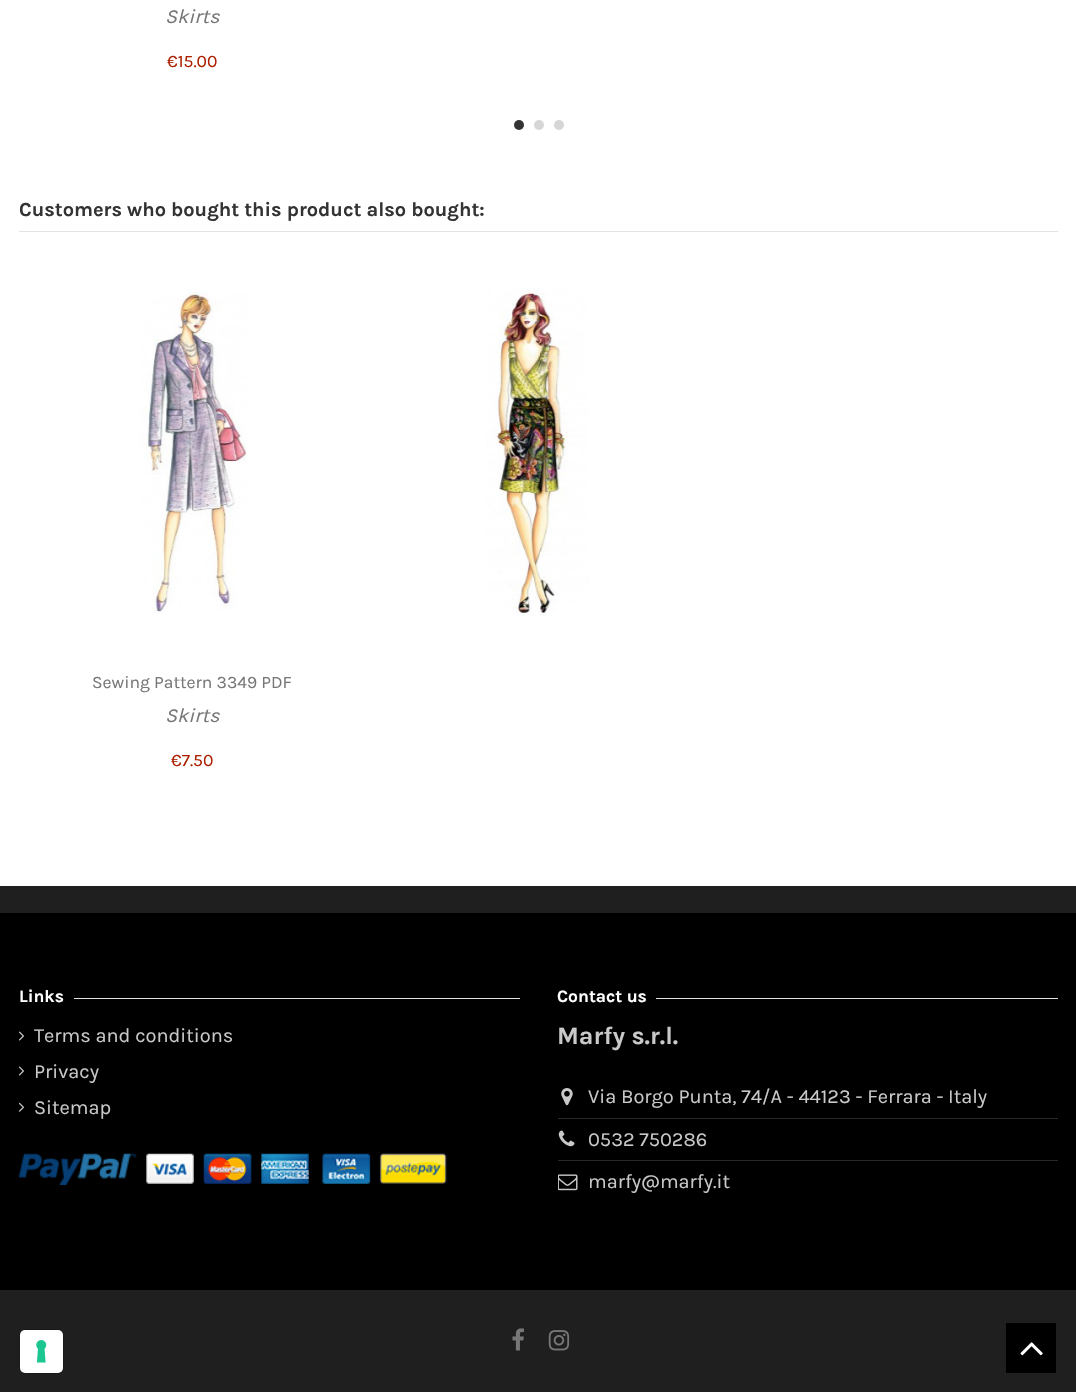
void draw(SkCanvas* canvas) {
    SkPaint paint;
    paint.setAntiAlias(true);
    auto face = [&](const char* family, int weight, float size, bool italic = false) {
        SkFontStyle style(weight, SkFontStyle::kNormal_Width,
            italic ? SkFontStyle::kItalic_Slant : SkFontStyle::kUpright_Slant);
        SkFont result(fontMgr->matchFamilyStyle(family, style), size);
        result.setSubpixel(true);
        return result;
    };
    auto write = [&](const char* s, float x, float y, const SkFont& font, SkColor color) {
        SkPaint ink(SkColor4f::FromColor(color));
        ink.setAntiAlias(true);
        canvas->drawString(s, x, y, font, ink);
    };
    auto block = [&](float x, float y, float w, float h, SkColor color) {
        SkPaint ink(SkColor4f::FromColor(color));
        ink.setAntiAlias(true);
        canvas->drawRect(SkRect::MakeXYWH(x, y, w, h), ink);
    };
    auto card = [&](float x, float y, float w, float h, float radius, SkColor color) {
        SkPaint ink(SkColor4f::FromColor(color));
        ink.setAntiAlias(true);
        canvas->drawRoundRect(SkRect::MakeXYWH(x, y, w, h), radius, radius, ink);
    };
    auto paste = [&](const char* path, float x, float y, float w, float h) {
        auto image = SkImages::DeferredFromEncodedData(SkData::MakeFromFileName(path));
        canvas->drawImageRect(image, SkRect::MakeXYWH(x, y, w, h), SkSamplingOptions());
    };
    canvas->clear(SK_ColorBLACK);
    block(0, 0, 1076, 886, SK_ColorWHITE);
    auto kFont1 = face("Karla", 400, 20, true);
    write("Skirts", 165, 23, kFont1, SkColorSetRGB(119, 119, 119));
    auto kFont2 = face("Karla", 400, 17.5f);
    write("€15.00", 167, 67, kFont2, SkColorSetRGB(173, 31, 0));
    paint.setColor(SkColorSetRGB(51, 51, 51));
    canvas->drawCircle(519, 125, 5, paint);
    paint.setColor(SkColorSetRGB(214, 214, 214));
    canvas->drawCircle(539, 125, 5, paint);
    canvas->drawCircle(559, 125, 5, paint);
    block(19, 231, 1039, 1, SkColorSetRGB(227, 227, 227));
    auto kFont3 = face("Karla", 700, 20);
    write("Customers who bought this product also bought:", 19, 216, kFont3, SkColorSetRGB(51, 51, 51));
    paste("pic1.png", 486, 287, 103, 329);
    paste("pic2.png", 140, 291, 107, 323);
    write("Sewing Pattern 3349 PDF", 92, 688, kFont2, SkColorSetRGB(119, 119, 119));
    write("Skirts", 165, 722, kFont1, SkColorSetRGB(119, 119, 119));
    write("€7.50", 171, 766, kFont2, SkColorSetRGB(173, 31, 0));
    block(0, 886, 1076, 27, SkColorSetRGB(31, 31, 31));
    auto kFont4 = face("Karla", 700, 17.5f);
    write("Links", 19, 1002, kFont4, SK_ColorWHITE);
    block(74, 998, 446, 1, SkColorSetRGB(227, 227, 227));
    paste("pic3.png", 18, 1031, 7, 10);
    auto kFont5 = face("Karla", 400, 20);
    write("Terms and conditions", 34, 1042, kFont5, SkColorSetRGB(201, 201, 201));
    paste("pic3.png", 18, 1066, 7, 10);
    write("Privacy", 34, 1078, kFont5, SkColorSetRGB(201, 201, 201));
    paste("pic4.png", 18, 1102, 7, 10);
    write("Sitemap", 34, 1114, kFont5, SkColorSetRGB(201, 201, 201));
    paste("pic5.png", 18, 1153, 429, 32);
    write("Contact us", 557, 1002, kFont4, SK_ColorWHITE);
    block(656, 998, 402, 1, SkColorSetRGB(227, 227, 227));
    auto kFont6 = face("Karla", 700, 25);
    write("Marfy s.r.l.", 557, 1044, kFont6, SkColorSetRGB(201, 201, 201));
    paste("pic6.png", 561, 1088, 12, 18);
    write("Via Borgo Punta, 74/A - 44123 - Ferrara - Italy", 588, 1103, kFont5, SkColorSetRGB(201, 201, 201));
    block(558, 1118, 500, 1, SkColorSetRGB(40, 40, 40));
    paste("pic7.png", 558, 1130, 17, 17);
    write("0532 750286", 588, 1146, kFont5, SkColorSetRGB(201, 201, 201));
    block(558, 1160, 500, 1, SkColorSetRGB(40, 40, 40));
    paste("pic8.png", 558, 1174, 20, 17);
    write("marfy@marfy.it", 588, 1188, kFont5, SkColorSetRGB(201, 201, 201));
    block(0, 1290, 1076, 102, SkColorSetRGB(31, 31, 31));
    paste("pic9.png", 512, 1328, 12, 23);
    paste("pic10.png", 548, 1330, 22, 21);
    paint.setStyle(SkPaint::kStroke_Style);
    paint.setStrokeWidth(1);
    paint.setColor(SkColorSetRGB(26, 26, 26));
    canvas->drawRoundRect(SkRect::MakeXYWH(19.5f, 1329.5f, 44, 44), 5.5f, 5.5f, paint);
    card(20, 1330, 43, 43, 5, SK_ColorWHITE);
    paste("pic11.png", 36, 1340, 11, 23);
    block(1006, 1323, 50, 50, SK_ColorBLACK);
    paste("pic12.png", 1020, 1342, 23, 14);
}
